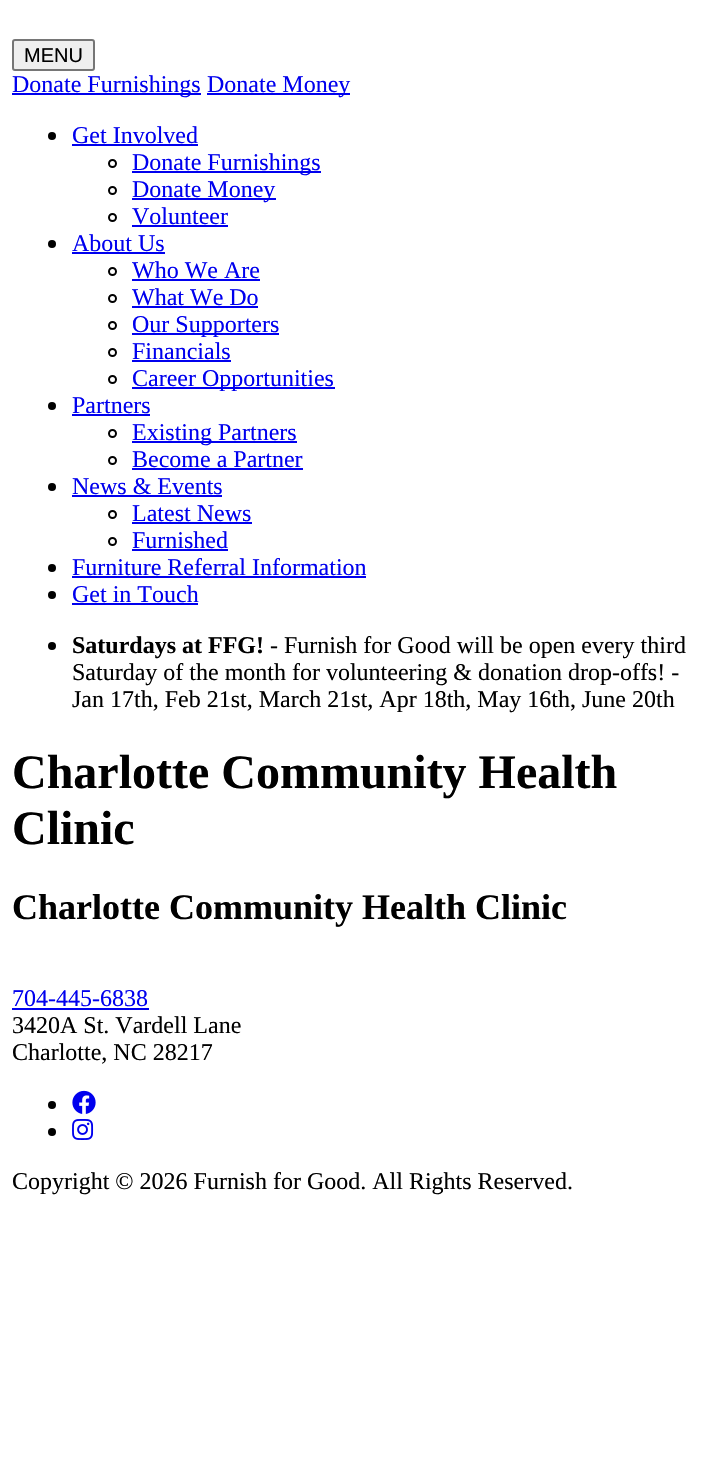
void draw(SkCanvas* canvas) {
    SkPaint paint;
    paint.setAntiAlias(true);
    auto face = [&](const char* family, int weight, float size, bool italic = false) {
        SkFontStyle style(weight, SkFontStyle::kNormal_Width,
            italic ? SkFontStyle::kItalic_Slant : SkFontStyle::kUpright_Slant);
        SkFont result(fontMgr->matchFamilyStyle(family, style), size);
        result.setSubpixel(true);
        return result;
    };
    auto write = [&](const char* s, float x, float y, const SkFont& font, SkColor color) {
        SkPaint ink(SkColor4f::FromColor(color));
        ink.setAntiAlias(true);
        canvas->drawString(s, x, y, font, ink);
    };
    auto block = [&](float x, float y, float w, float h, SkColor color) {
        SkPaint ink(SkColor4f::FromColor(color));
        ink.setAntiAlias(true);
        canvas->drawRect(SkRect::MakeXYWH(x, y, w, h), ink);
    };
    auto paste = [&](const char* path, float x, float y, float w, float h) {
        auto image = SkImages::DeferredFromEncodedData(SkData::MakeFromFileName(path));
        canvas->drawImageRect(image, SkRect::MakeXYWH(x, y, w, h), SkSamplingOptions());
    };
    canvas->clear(SK_ColorWHITE);
    paint.setColor(SkColorSetRGB(239, 239, 239));
    canvas->drawRoundRect(SkRect::MakeXYWH(13, 40, 81, 30), 2, 2, paint);
    paint.setStyle(SkPaint::kStroke_Style);
    paint.setStrokeWidth(2);
    paint.setColor(SkColorSetRGB(118, 118, 118));
    canvas->drawRoundRect(SkRect::MakeXYWH(13, 40, 81, 30), 2, 2, paint);
    auto kFont1 = face("Liberation Sans", 400, 20);
    write("MENU", 24, 62, kFont1, SK_ColorBLACK);
    block(12, 93, 189, 2, SkColorSetRGB(0, 0, 238));
    auto kFont2 = face("Liberation Serif", 400, 24);
    write("Donate Furnishings", 12, 92, kFont2, SkColorSetRGB(0, 0, 238));
    block(207, 93, 143, 2, SkColorSetRGB(0, 0, 238));
    write("Donate Money", 207, 92, kFont2, SkColorSetRGB(0, 0, 238));
    paint.setStyle(SkPaint::kFill_Style);
    paint.setColor(SK_ColorBLACK);
    canvas->drawCircle(52, 136, 4, paint);
    write("Get Involved", 72, 143, kFont2, SkColorSetRGB(0, 0, 238));
    block(72, 144, 126, 2, SkColorSetRGB(0, 0, 238));
    paint.setStyle(SkPaint::kStroke_Style);
    canvas->drawCircle(112.5f, 163.5f, 3.5f, paint);
    block(132, 171, 189, 2, SkColorSetRGB(0, 0, 238));
    write("Donate Furnishings", 132, 170, kFont2, SkColorSetRGB(0, 0, 238));
    canvas->drawCircle(112.5f, 190.5f, 3.5f, paint);
    block(132, 198, 144, 2, SkColorSetRGB(0, 0, 238));
    write("Donate Money", 132, 197, kFont2, SkColorSetRGB(0, 0, 238));
    canvas->drawCircle(112.5f, 217.5f, 3.5f, paint);
    write("Volunteer", 132, 224, kFont2, SkColorSetRGB(0, 0, 238));
    block(132, 225, 96, 2, SkColorSetRGB(0, 0, 238));
    paint.setStyle(SkPaint::kFill_Style);
    canvas->drawCircle(52, 244, 4, paint);
    write("About Us", 72, 251, kFont2, SkColorSetRGB(0, 0, 238));
    block(72, 252, 93, 2, SkColorSetRGB(0, 0, 238));
    paint.setStyle(SkPaint::kStroke_Style);
    canvas->drawCircle(112.5f, 271.5f, 3.5f, paint);
    write("Who We Are", 132, 278, kFont2, SkColorSetRGB(0, 0, 238));
    block(132, 279, 128, 2, SkColorSetRGB(0, 0, 238));
    canvas->drawCircle(112.5f, 298.5f, 3.5f, paint);
    write("What We Do", 132, 305, kFont2, SkColorSetRGB(0, 0, 238));
    block(132, 306, 126, 2, SkColorSetRGB(0, 0, 238));
    canvas->drawCircle(112.5f, 325.5f, 3.5f, paint);
    block(132, 333, 147, 2, SkColorSetRGB(0, 0, 238));
    write("Our Supporters", 132, 332, kFont2, SkColorSetRGB(0, 0, 238));
    canvas->drawCircle(112.5f, 352.5f, 3.5f, paint);
    write("Financials", 132, 359, kFont2, SkColorSetRGB(0, 0, 238));
    block(132, 360, 99, 2, SkColorSetRGB(0, 0, 238));
    canvas->drawCircle(112.5f, 379.5f, 3.5f, paint);
    block(132, 387, 203, 2, SkColorSetRGB(0, 0, 238));
    write("Career Opportunities", 132, 386, kFont2, SkColorSetRGB(0, 0, 238));
    paint.setStyle(SkPaint::kFill_Style);
    canvas->drawCircle(52, 406, 4, paint);
    write("Partners", 72, 413, kFont2, SkColorSetRGB(0, 0, 238));
    block(72, 414, 78, 2, SkColorSetRGB(0, 0, 238));
    paint.setStyle(SkPaint::kStroke_Style);
    canvas->drawCircle(112.5f, 433.5f, 3.5f, paint);
    block(132, 441, 165, 2, SkColorSetRGB(0, 0, 238));
    write("Existing Partners", 132, 440, kFont2, SkColorSetRGB(0, 0, 238));
    canvas->drawCircle(112.5f, 460.5f, 3.5f, paint);
    write("Become a Partner", 132, 467, kFont2, SkColorSetRGB(0, 0, 238));
    block(132, 468, 171, 2, SkColorSetRGB(0, 0, 238));
    paint.setStyle(SkPaint::kFill_Style);
    canvas->drawCircle(52, 487, 4, paint);
    write("News & Events", 72, 494, kFont2, SkColorSetRGB(0, 0, 238));
    block(72, 495, 150, 2, SkColorSetRGB(0, 0, 238));
    paint.setStyle(SkPaint::kStroke_Style);
    canvas->drawCircle(112.5f, 514.5f, 3.5f, paint);
    write("Latest News", 132, 521, kFont2, SkColorSetRGB(0, 0, 238));
    block(132, 522, 120, 2, SkColorSetRGB(0, 0, 238));
    canvas->drawCircle(112.5f, 541.5f, 3.5f, paint);
    write("Furnished", 132, 548, kFont2, SkColorSetRGB(0, 0, 238));
    block(132, 549, 96, 2, SkColorSetRGB(0, 0, 238));
    paint.setStyle(SkPaint::kFill_Style);
    canvas->drawCircle(52, 568, 4, paint);
    write("Furniture Referral Information", 72, 575, kFont2, SkColorSetRGB(0, 0, 238));
    block(72, 576, 294, 2, SkColorSetRGB(0, 0, 238));
    canvas->drawCircle(52, 595, 4, paint);
    write("Get in Touch", 72, 602, kFont2, SkColorSetRGB(0, 0, 238));
    block(72, 603, 126, 2, SkColorSetRGB(0, 0, 238));
    canvas->drawCircle(52, 646, 4, paint);
    auto kFont3 = face("Liberation Serif", 700, 24);
    write("Saturdays at FFG!", 72, 653, kFont3, SK_ColorBLACK);
    write("- Furnish for Good will be open every third", 270, 653, kFont2, SK_ColorBLACK);
    write("Saturday of the month for volunteering & donation drop-offs! -", 72, 680, kFont2, SK_ColorBLACK);
    write("Jan 17th, Feb 21st, March 21st, Apr 18th, May 16th, June 20th", 72, 707, kFont2, SK_ColorBLACK);
    auto kFont4 = face("Liberation Serif", 700, 48);
    write("Charlotte Community Health", 12, 788, kFont4, SK_ColorBLACK);
    write("Clinic", 12, 844, kFont4, SK_ColorBLACK);
    auto kFont5 = face("Liberation Serif", 700, 36);
    write("Charlotte Community Health Clinic", 12, 919, kFont5, SK_ColorBLACK);
    write("704-445-6838", 12, 1006, kFont2, SkColorSetRGB(0, 0, 238));
    block(12, 1008, 137, 2, SkColorSetRGB(0, 0, 238));
    write("3420A St. Vardell Lane", 12, 1033, kFont2, SK_ColorBLACK);
    write("Charlotte, NC 28217", 12, 1060, kFont2, SK_ColorBLACK);
    canvas->drawCircle(52, 1105, 4, paint);
    paste("pic1.png", 72, 1090, 24, 24);
    canvas->drawCircle(52, 1132, 4, paint);
    paste("pic2.png", 72, 1119, 22, 21);
    write("Copyright © 2026 Furnish for Good. All Rights Reserved.", 12, 1189, kFont2, SK_ColorBLACK);
}
